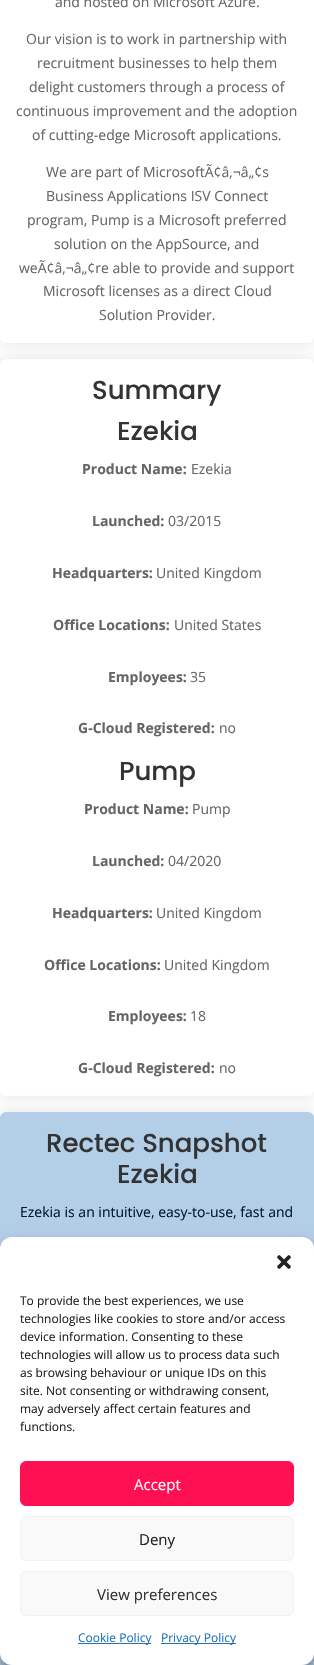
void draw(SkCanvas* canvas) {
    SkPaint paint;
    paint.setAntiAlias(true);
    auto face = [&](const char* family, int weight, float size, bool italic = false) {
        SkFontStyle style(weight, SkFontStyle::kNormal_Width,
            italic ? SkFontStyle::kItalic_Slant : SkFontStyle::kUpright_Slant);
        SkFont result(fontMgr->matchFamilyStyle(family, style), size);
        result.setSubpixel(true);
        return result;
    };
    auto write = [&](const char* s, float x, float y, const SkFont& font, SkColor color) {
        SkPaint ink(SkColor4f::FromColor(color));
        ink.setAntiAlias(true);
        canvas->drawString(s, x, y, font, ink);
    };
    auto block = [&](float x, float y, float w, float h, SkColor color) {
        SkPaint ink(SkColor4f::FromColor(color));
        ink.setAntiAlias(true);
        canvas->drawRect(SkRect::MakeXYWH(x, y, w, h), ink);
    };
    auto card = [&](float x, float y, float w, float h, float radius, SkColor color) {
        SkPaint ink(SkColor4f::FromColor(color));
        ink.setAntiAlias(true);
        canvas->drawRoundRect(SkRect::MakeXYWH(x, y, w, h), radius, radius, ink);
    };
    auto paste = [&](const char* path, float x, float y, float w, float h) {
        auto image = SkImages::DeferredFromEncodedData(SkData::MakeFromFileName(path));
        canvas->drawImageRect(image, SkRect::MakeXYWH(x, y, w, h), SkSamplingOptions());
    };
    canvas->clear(SK_ColorWHITE);
    paint.setColor(SkColorSetARGB(26, 0, 0, 0));
    paint.setMaskFilter(SkMaskFilter::MakeBlur(kNormal_SkBlurStyle, 7.5f));
    canvas->drawRoundRect(SkRect::MakeXYWH(0, 359, 314, 737), 6, 6, paint);
    paint.setMaskFilter(nullptr);
    card(0, 359, 314, 737, 6, SK_ColorWHITE);
    paint.setMaskFilter(SkMaskFilter::MakeBlur(kNormal_SkBlurStyle, 7.5f));
    canvas->drawRoundRect(SkRect::MakeXYWH(0, -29, 314, 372), 6, 6, paint);
    paint.setMaskFilter(nullptr);
    card(0, -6, 314, 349, 6, SK_ColorWHITE);
    auto kFont1 = face("Open Sans", 400, 14);
    write("and hosted on Microsoft Azure.", 55, 7, kFont1, SkColorSetRGB(102, 102, 102));
    write("Our vision is to work in partnership with", 26, 44, kFont1, SkColorSetRGB(102, 102, 102));
    write("recruitment businesses to help them", 37, 68, kFont1, SkColorSetRGB(102, 102, 102));
    write("delight customers through a process of", 29, 92, kFont1, SkColorSetRGB(102, 102, 102));
    write("continuous improvement and the adoption", 16, 116, kFont1, SkColorSetRGB(102, 102, 102));
    write("of cutting-edge Microsoft applications.", 32, 140, kFont1, SkColorSetRGB(102, 102, 102));
    write("We are part of MicrosoftÃ¢â‚¬â„¢s", 46, 177, kFont1, SkColorSetRGB(102, 102, 102));
    write("Business Applications ISV Connect", 46, 201, kFont1, SkColorSetRGB(102, 102, 102));
    write("program, Pump is a Microsoft preferred", 27, 225, kFont1, SkColorSetRGB(102, 102, 102));
    write("solution on the AppSource, and", 54, 249, kFont1, SkColorSetRGB(102, 102, 102));
    write("weÃ¢â‚¬â„¢re able to provide and support", 19, 273, kFont1, SkColorSetRGB(102, 102, 102));
    write("Microsoft licenses as a direct Cloud", 43, 296, kFont1, SkColorSetRGB(102, 102, 102));
    write("Solution Provider.", 99, 320, kFont1, SkColorSetRGB(102, 102, 102));
    auto kFont2 = face("Poppins", 500, 26);
    write("Summary", 92, 399, kFont2, SkColorSetRGB(51, 51, 51));
    write("Ezekia", 117, 440, kFont2, SkColorSetRGB(51, 51, 51));
    auto kFont3 = face("Open Sans", 700, 14);
    write("Product Name:", 82, 474, kFont3, SkColorSetRGB(102, 102, 102));
    write("Ezekia", 191, 474, kFont1, SkColorSetRGB(102, 102, 102));
    write("Launched:", 92, 526, kFont3, SkColorSetRGB(102, 102, 102));
    write("03/2015", 168, 526, kFont1, SkColorSetRGB(102, 102, 102));
    write("Headquarters:", 52, 578, kFont3, SkColorSetRGB(102, 102, 102));
    write("United Kingdom", 156, 578, kFont1, SkColorSetRGB(102, 102, 102));
    write("Office Locations:", 53, 630, kFont3, SkColorSetRGB(102, 102, 102));
    write("United States", 174, 630, kFont1, SkColorSetRGB(102, 102, 102));
    write("Employees:", 108, 682, kFont3, SkColorSetRGB(102, 102, 102));
    write("35", 190, 682, kFont1, SkColorSetRGB(102, 102, 102));
    write("G-Cloud Registered:", 78, 733, kFont3, SkColorSetRGB(102, 102, 102));
    write("no", 219, 733, kFont1, SkColorSetRGB(102, 102, 102));
    write("Pump", 119, 780, kFont2, SkColorSetRGB(51, 51, 51));
    write("Product Name:", 84, 814, kFont3, SkColorSetRGB(102, 102, 102));
    write("Pump", 192, 814, kFont1, SkColorSetRGB(102, 102, 102));
    write("Launched:", 92, 866, kFont3, SkColorSetRGB(102, 102, 102));
    write("04/2020", 168, 866, kFont1, SkColorSetRGB(102, 102, 102));
    write("Headquarters:", 52, 918, kFont3, SkColorSetRGB(102, 102, 102));
    write("United Kingdom", 156, 918, kFont1, SkColorSetRGB(102, 102, 102));
    write("Office Locations:", 44, 970, kFont3, SkColorSetRGB(102, 102, 102));
    write("United Kingdom", 164, 970, kFont1, SkColorSetRGB(102, 102, 102));
    write("Employees:", 108, 1021, kFont3, SkColorSetRGB(102, 102, 102));
    write("18", 190, 1021, kFont1, SkColorSetRGB(102, 102, 102));
    write("G-Cloud Registered:", 78, 1073, kFont3, SkColorSetRGB(102, 102, 102));
    write("no", 219, 1073, kFont1, SkColorSetRGB(102, 102, 102));
    paint.setMaskFilter(SkMaskFilter::MakeBlur(kNormal_SkBlurStyle, 7.5f));
    canvas->drawRoundRect(SkRect::MakeXYWH(0, 1112, 314, 466), 6, 6, paint);
    paint.setMaskFilter(nullptr);
    card(0, 1112, 314, 466, 6, SkColorSetRGB(179, 206, 231));
    write("Rectec Snapshot", 46, 1152, kFont2, SkColorSetRGB(51, 51, 51));
    write("Ezekia", 117, 1183, kFont2, SkColorSetRGB(51, 51, 51));
    write("Ezekia is an intuitive, easy-to-use, fast and", 20, 1217, kFont1, SkColorSetRGB(1, 25, 48));
    block(0, 1653, 314, 12, SkColorSetRGB(178, 206, 231));
    paint.setColor(SkColorSetARGB(59, 0, 0, 0));
    paint.setMaskFilter(SkMaskFilter::MakeBlur(kNormal_SkBlurStyle, 3));
    canvas->drawRoundRect(SkRect::MakeXYWH(0, 1243, 314, 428), 12, 12, paint);
    paint.setMaskFilter(nullptr);
    paint.setColor(SkColorSetARGB(48, 0, 0, 0));
    paint.setMaskFilter(SkMaskFilter::MakeBlur(kNormal_SkBlurStyle, 10));
    canvas->drawRoundRect(SkRect::MakeXYWH(0, 1247, 314, 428), 12, 12, paint);
    paint.setMaskFilter(nullptr);
    card(0, 1237, 314, 428, 12, SK_ColorWHITE);
    paste("pic1.png", 277, 1255, 14, 14);
    auto kFont4 = face("Open Sans", 400, 12);
    write("To provide the best experiences, we use", 20, 1305, kFont4, SkColorSetRGB(34, 34, 34));
    write("technologies like cookies to store and/or access", 20, 1323, kFont4, SkColorSetRGB(34, 34, 34));
    write("device information. Consenting to these", 20, 1341, kFont4, SkColorSetRGB(34, 34, 34));
    write("technologies will allow us to process data such", 20, 1359, kFont4, SkColorSetRGB(34, 34, 34));
    write("as browsing behaviour or unique IDs on this", 20, 1377, kFont4, SkColorSetRGB(34, 34, 34));
    write("site. Not consenting or withdrawing consent,", 20, 1395, kFont4, SkColorSetRGB(34, 34, 34));
    write("may adversely affect certain features and", 20, 1413, kFont4, SkColorSetRGB(34, 34, 34));
    write("functions.", 20, 1431, kFont4, SkColorSetRGB(34, 34, 34));
    paint.setColor(SkColorSetRGB(255, 16, 83));
    canvas->drawRoundRect(SkRect::MakeXYWH(20.5f, 1461.5f, 273, 44), 5.5f, 5.5f, paint);
    paint.setStyle(SkPaint::kStroke_Style);
    paint.setStrokeWidth(1);
    canvas->drawRoundRect(SkRect::MakeXYWH(20.5f, 1461.5f, 273, 44), 5.5f, 5.5f, paint);
    auto kFont5 = face("Open Sans", 400, 15);
    write("Accept", 134, 1490, kFont5, SK_ColorWHITE);
    paint.setStyle(SkPaint::kFill_Style);
    paint.setColor(SkColorSetRGB(249, 249, 249));
    canvas->drawRoundRect(SkRect::MakeXYWH(20.5f, 1516.5f, 273, 44), 5.5f, 5.5f, paint);
    paint.setStyle(SkPaint::kStroke_Style);
    paint.setColor(SkColorSetRGB(242, 242, 242));
    canvas->drawRoundRect(SkRect::MakeXYWH(20.5f, 1516.5f, 273, 44), 5.5f, 5.5f, paint);
    write("Deny", 139, 1545, kFont5, SkColorSetRGB(34, 34, 34));
    paint.setStyle(SkPaint::kFill_Style);
    paint.setColor(SkColorSetRGB(249, 249, 249));
    canvas->drawRoundRect(SkRect::MakeXYWH(20.5f, 1571.5f, 273, 44), 5.5f, 5.5f, paint);
    paint.setStyle(SkPaint::kStroke_Style);
    paint.setColor(SkColorSetRGB(242, 242, 242));
    canvas->drawRoundRect(SkRect::MakeXYWH(20.5f, 1571.5f, 273, 44), 5.5f, 5.5f, paint);
    write("View preferences", 97, 1600, kFont5, SkColorSetRGB(51, 51, 51));
    block(78, 1643, 73, 1, SkColorSetRGB(30, 115, 190));
    write("Cookie Policy", 78, 1642, kFont4, SkColorSetRGB(30, 115, 190));
    block(161, 1643, 75, 1, SkColorSetRGB(30, 115, 190));
    write("Privacy Policy", 161, 1642, kFont4, SkColorSetRGB(30, 115, 190));
}
